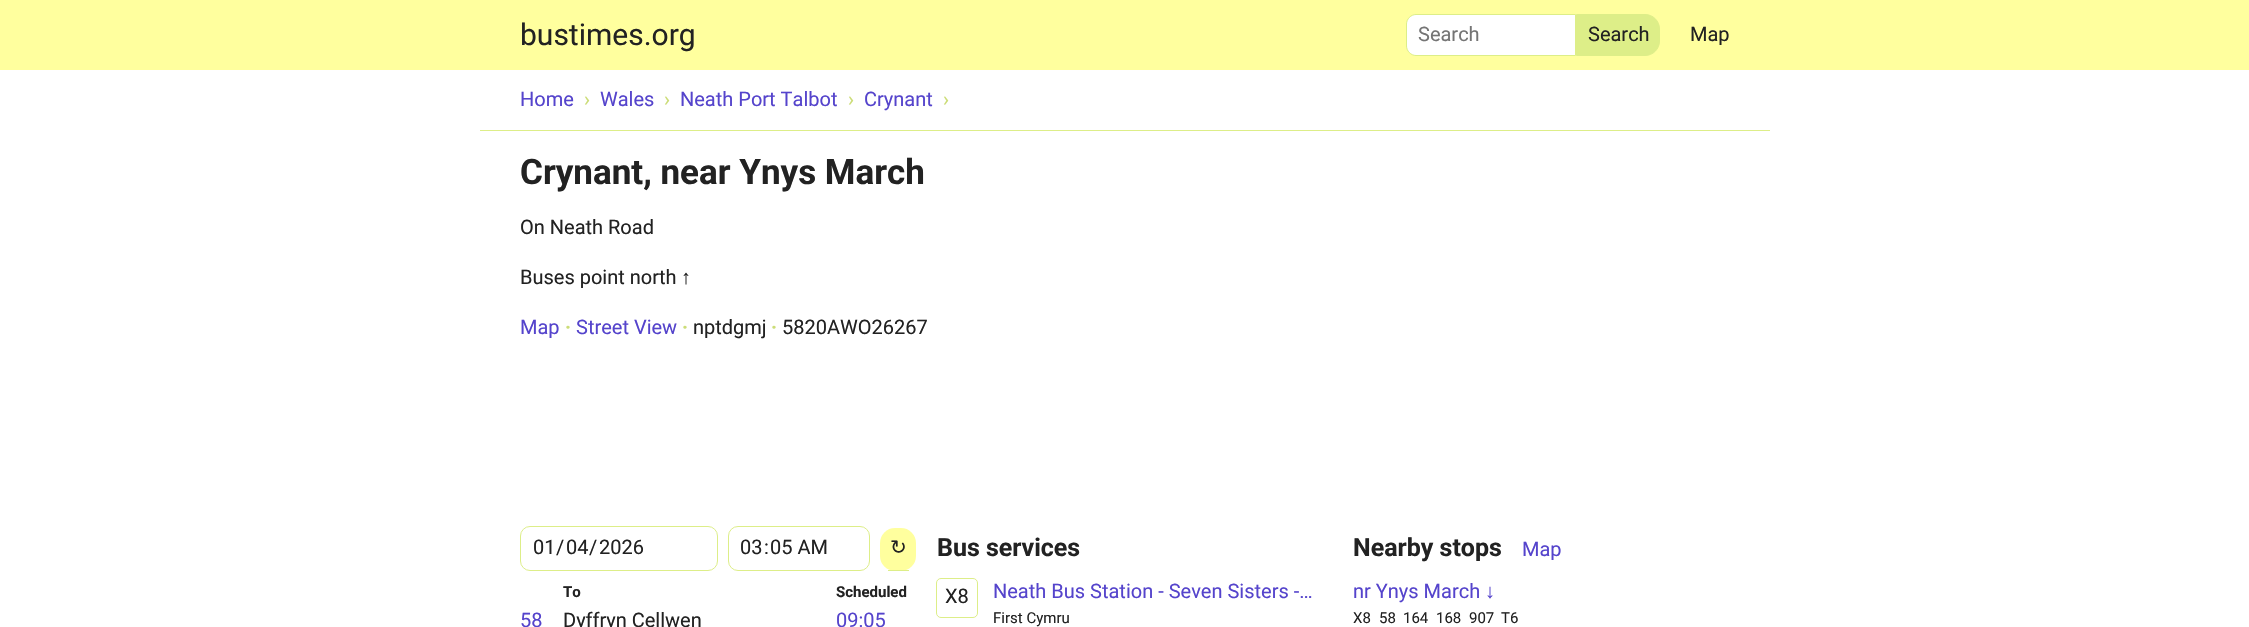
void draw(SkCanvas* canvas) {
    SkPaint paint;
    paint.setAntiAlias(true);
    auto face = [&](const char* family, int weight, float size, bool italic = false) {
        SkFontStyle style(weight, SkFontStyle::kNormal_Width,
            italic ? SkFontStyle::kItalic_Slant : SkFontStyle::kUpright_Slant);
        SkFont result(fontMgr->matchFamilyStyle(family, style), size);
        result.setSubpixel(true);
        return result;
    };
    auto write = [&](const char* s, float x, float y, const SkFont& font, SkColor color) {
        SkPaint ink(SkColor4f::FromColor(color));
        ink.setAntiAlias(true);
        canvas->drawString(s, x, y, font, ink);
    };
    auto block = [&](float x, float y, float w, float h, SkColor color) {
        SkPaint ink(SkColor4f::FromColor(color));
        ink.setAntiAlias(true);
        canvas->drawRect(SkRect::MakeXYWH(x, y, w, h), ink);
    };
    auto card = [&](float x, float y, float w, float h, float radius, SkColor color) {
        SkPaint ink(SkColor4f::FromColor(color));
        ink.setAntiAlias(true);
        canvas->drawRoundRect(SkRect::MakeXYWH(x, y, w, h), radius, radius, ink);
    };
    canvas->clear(SK_ColorWHITE);
    block(0, 0, 2249, 70, SkColorSetRGB(255, 255, 158));
    auto kFont1 = face("Roboto", 400, 30);
    write("bustimes.org", 520, 45, kFont1, SkColorSetRGB(34, 34, 34));
    paint.setColor(SK_ColorWHITE);
    canvas->drawPath(SkPathBuilder().moveTo(1416, 14.5f).lineTo(1575.5f, 14.5f).lineTo(1575.5f, 55.5f).lineTo(1416, 55.5f).cubicTo(1411, 55.5f, 1406.5f, 51, 1406.5f, 46).lineTo(1406.5f, 24).cubicTo(1406.5f, 19, 1411, 14.5f, 1416, 14.5f).close().detach(), paint);
    paint.setStyle(SkPaint::kStroke_Style);
    paint.setStrokeWidth(1);
    paint.setColor(SkColorSetRGB(221, 238, 136));
    canvas->drawPath(SkPathBuilder().moveTo(1416, 14.5f).lineTo(1575.5f, 14.5f).lineTo(1575.5f, 55.5f).lineTo(1416, 55.5f).cubicTo(1411, 55.5f, 1406.5f, 51, 1406.5f, 46).lineTo(1406.5f, 24).cubicTo(1406.5f, 19, 1411, 14.5f, 1416, 14.5f).close().detach(), paint);
    auto kFont2 = face("Roboto", 400, 20);
    write("Search", 1418, 41, kFont2, SkColorSetRGB(117, 117, 117));
    paint.setStyle(SkPaint::kFill_Style);
    canvas->drawPath(SkPathBuilder().moveTo(1576.5f, 14.5f).lineTo(1645, 14.5f).cubicTo(1653, 14.5f, 1659.5f, 21, 1659.5f, 29).lineTo(1659.5f, 41).cubicTo(1659.5f, 49, 1653, 55.5f, 1645, 55.5f).lineTo(1576.5f, 55.5f).close().detach(), paint);
    paint.setStyle(SkPaint::kStroke_Style);
    canvas->drawPath(SkPathBuilder().moveTo(1576.5f, 14.5f).lineTo(1645, 14.5f).cubicTo(1653, 14.5f, 1659.5f, 21, 1659.5f, 29).lineTo(1659.5f, 41).cubicTo(1659.5f, 49, 1653, 55.5f, 1645, 55.5f).lineTo(1576.5f, 55.5f).close().detach(), paint);
    write("Search", 1588, 41, kFont2, SkColorSetRGB(34, 34, 34));
    write("Map", 1690, 41, kFont2, SkColorSetRGB(34, 34, 34));
    block(480, 130, 1290, 1, SkColorSetRGB(221, 238, 136));
    write("Home", 520, 106, kFont2, SkColorSetRGB(85, 68, 204));
    write("›", 584, 106, kFont2, SkColorSetRGB(204, 221, 119));
    write("Wales", 600, 106, kFont2, SkColorSetRGB(85, 68, 204));
    write("›", 664, 106, kFont2, SkColorSetRGB(204, 221, 119));
    write("Neath Port Talbot", 680, 106, kFont2, SkColorSetRGB(85, 68, 204));
    write("›", 848, 106, kFont2, SkColorSetRGB(204, 221, 119));
    write("Crynant", 864, 106, kFont2, SkColorSetRGB(85, 68, 204));
    write("›", 943, 106, kFont2, SkColorSetRGB(204, 221, 119));
    auto kFont3 = face("Roboto", 700, 35);
    write("Crynant, near Ynys March", 520, 184, kFont3, SkColorSetRGB(34, 34, 34));
    write("On Neath Road", 520, 234, kFont2, SkColorSetRGB(34, 34, 34));
    write("Buses point north", 520, 284, kFont2, SkColorSetRGB(34, 34, 34));
    auto kFont4 = face("Liberation Sans", 400, 20);
    write("↑", 681, 284, kFont4, SkColorSetRGB(34, 34, 34));
    write("Map", 520, 334, kFont2, SkColorSetRGB(85, 68, 204));
    auto kFont5 = face("Roboto", 700, 20);
    write("·", 565, 334, kFont5, SkColorSetRGB(204, 221, 119));
    write("Street View", 576, 334, kFont2, SkColorSetRGB(85, 68, 204));
    write("·", 682, 334, kFont5, SkColorSetRGB(204, 221, 119));
    write("nptdgmj", 693, 334, kFont2, SkColorSetRGB(34, 34, 34));
    write("·", 771, 334, kFont5, SkColorSetRGB(204, 221, 119));
    write("5820AWO26267", 782, 334, kFont2, SkColorSetRGB(34, 34, 34));
    canvas->drawRoundRect(SkRect::MakeXYWH(520.5f, 526.5f, 197, 44), 9.5f, 9.5f, paint);
    write("01", 533, 554, kFont2, SkColorSetRGB(34, 34, 34));
    write("/", 556, 554, kFont2, SkColorSetRGB(34, 34, 34));
    write("04", 566, 554, kFont2, SkColorSetRGB(34, 34, 34));
    write("/", 589, 554, kFont2, SkColorSetRGB(34, 34, 34));
    write("2026", 599, 554, kFont2, SkColorSetRGB(34, 34, 34));
    canvas->drawRoundRect(SkRect::MakeXYWH(728.5f, 526.5f, 141, 44), 9.5f, 9.5f, paint);
    write("03", 740, 554, kFont2, SkColorSetRGB(34, 34, 34));
    write(":", 764, 554, kFont2, SkColorSetRGB(34, 34, 34));
    write("05 AM", 770, 554, kFont2, SkColorSetRGB(34, 34, 34));
    card(880, 528, 36, 43, 15, SkColorSetRGB(255, 255, 158));
    block(888, 570, 21, 1, SkColorSetRGB(221, 238, 136));
    auto kFont6 = face("DejaVu Sans", 400, 20);
    write("↻", 890, 554, kFont6, SkColorSetRGB(34, 34, 34));
    auto kFont7 = face("Roboto", 700, 15);
    write("To", 563, 597, kFont7, SkColorSetRGB(34, 34, 34));
    write("Scheduled", 836, 597, kFont7, SkColorSetRGB(34, 34, 34));
    write("58", 520, 627, kFont2, SkColorSetRGB(85, 68, 204));
    write("Dyffryn Cellwen", 563, 627, kFont2, SkColorSetRGB(34, 34, 34));
    write("09:05", 836, 627, kFont2, SkColorSetRGB(85, 68, 204));
    auto kFont8 = face("Roboto", 700, 25);
    write("Bus services", 937, 556, kFont8, SkColorSetRGB(34, 34, 34));
    canvas->drawRoundRect(SkRect::MakeXYWH(936.5f, 578.5f, 41, 39), 4.5f, 4.5f, paint);
    write("X8", 945, 603, kFont2, SkColorSetRGB(34, 34, 34));
    write("Neath Bus Station - Seven Sisters -…", 993, 598, kFont2, SkColorSetRGB(85, 68, 204));
    auto kFont9 = face("Roboto", 400, 15);
    write("First Cymru", 993, 623, kFont9, SkColorSetRGB(34, 34, 34));
    write("Nearby stops", 1353, 556, kFont8, SkColorSetRGB(34, 34, 34));
    write("Map", 1522, 556, kFont2, SkColorSetRGB(85, 68, 204));
    write("nr Ynys March", 1353, 598, kFont2, SkColorSetRGB(85, 68, 204));
    write("↓", 1485, 598, kFont4, SkColorSetRGB(85, 68, 204));
    write("X8", 1353, 623, kFont9, SkColorSetRGB(34, 34, 34));
    write("58", 1379, 623, kFont9, SkColorSetRGB(34, 34, 34));
    write("164", 1403, 623, kFont9, SkColorSetRGB(34, 34, 34));
    write("168", 1436, 623, kFont9, SkColorSetRGB(34, 34, 34));
    write("907", 1469, 623, kFont9, SkColorSetRGB(34, 34, 34));
    write("T6", 1501, 623, kFont9, SkColorSetRGB(34, 34, 34));
}
